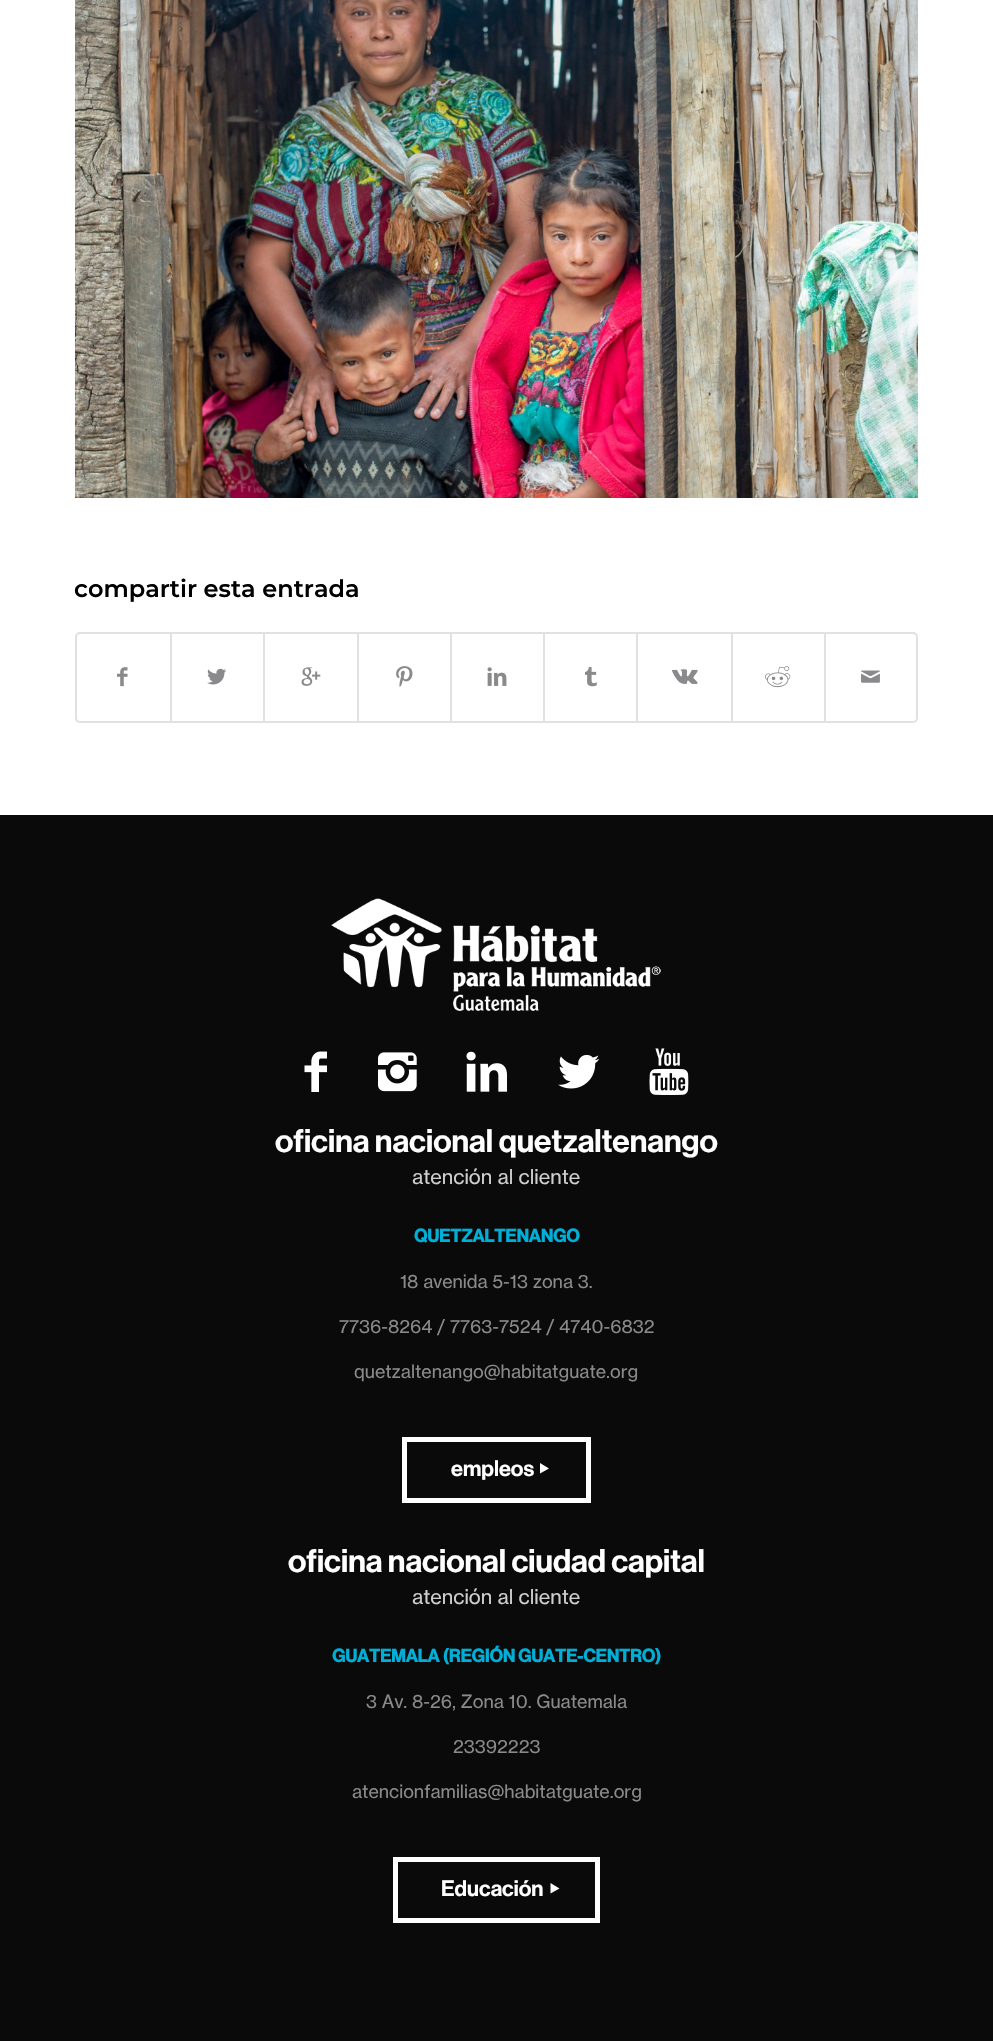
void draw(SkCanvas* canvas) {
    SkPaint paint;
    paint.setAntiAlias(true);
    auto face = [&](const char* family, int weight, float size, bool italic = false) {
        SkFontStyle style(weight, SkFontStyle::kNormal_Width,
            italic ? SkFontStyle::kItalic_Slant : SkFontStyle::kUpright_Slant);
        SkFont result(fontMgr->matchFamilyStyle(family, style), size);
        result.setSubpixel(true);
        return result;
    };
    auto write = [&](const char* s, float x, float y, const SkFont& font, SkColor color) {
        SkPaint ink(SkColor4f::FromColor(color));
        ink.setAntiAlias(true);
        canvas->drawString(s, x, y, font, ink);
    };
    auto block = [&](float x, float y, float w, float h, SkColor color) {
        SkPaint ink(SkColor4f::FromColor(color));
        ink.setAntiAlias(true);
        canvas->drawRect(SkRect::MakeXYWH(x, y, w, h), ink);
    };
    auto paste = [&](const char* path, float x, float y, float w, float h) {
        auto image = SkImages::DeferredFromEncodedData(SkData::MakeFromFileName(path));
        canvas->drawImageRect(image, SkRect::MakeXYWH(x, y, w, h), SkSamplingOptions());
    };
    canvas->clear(SK_ColorWHITE);
    paste("pic1.png", 75, 0, 843, 498);
    auto kFont1 = face("Montserrat", 600, 24);
    write("compartir esta entrada", 74, 597, kFont1, SK_ColorBLACK);
    paint.setStyle(SkPaint::kStroke_Style);
    paint.setStrokeWidth(2);
    paint.setColor(SkColorSetRGB(225, 225, 225));
    canvas->drawRoundRect(SkRect::MakeXYWH(76, 633, 841, 89), 4, 4, paint);
    paste("pic2.png", 117, 667, 11, 20);
    block(170, 633, 2, 89, SkColorSetRGB(225, 225, 225));
    paste("pic3.png", 207, 668, 20, 17);
    block(263, 633, 2, 89, SkColorSetRGB(225, 225, 225));
    paste("pic4.png", 301, 667, 20, 19);
    block(357, 633, 2, 89, SkColorSetRGB(225, 225, 225));
    paste("pic5.png", 396, 666, 17, 21);
    block(450, 633, 2, 89, SkColorSetRGB(225, 225, 225));
    paste("pic6.png", 487, 667, 20, 19);
    block(543, 633, 2, 89, SkColorSetRGB(225, 225, 225));
    paste("pic7.png", 585, 667, 12, 20);
    block(636, 633, 2, 89, SkColorSetRGB(225, 225, 225));
    paste("pic8.png", 672, 669, 26, 15);
    block(731, 633, 2, 89, SkColorSetRGB(225, 225, 225));
    paste("pic9.png", 765, 666, 26, 22);
    block(824, 633, 2, 89, SkColorSetRGB(225, 225, 225));
    paste("pic10.png", 861, 670, 19, 13);
    block(0, 815, 993, 1226, SkColorSetRGB(10, 10, 10));
    paste("pic11.png", 331, 898, 330, 113);
    paste("pic12.png", 304, 1051, 23, 41);
    paste("pic13.png", 378, 1052, 39, 40);
    paste("pic14.png", 466, 1051, 41, 41);
    paste("pic15.png", 558, 1054, 42, 35);
    paste("pic16.png", 649, 1048, 40, 47);
    auto kFont2 = face("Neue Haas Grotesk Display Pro", 500, 32);
    write("oficina nacional quetzaltenango", 275, 1152, kFont2, SK_ColorWHITE);
    auto kFont3 = face("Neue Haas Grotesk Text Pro", 400, 20);
    write("atención al cliente", 412, 1184, kFont3, SkColorSetRGB(206, 206, 206));
    auto kFont4 = face("Neue Haas Grotesk Display Pro", 700, 18);
    write("QUETZALTENANGO", 414, 1242, kFont4, SkColorSetRGB(0, 175, 215));
    auto kFont5 = face("Neue Haas Grotesk Text Pro", 400, 18);
    write("18 avenida 5-13 zona 3.", 400, 1288, kFont5, SkColorSetRGB(138, 138, 141));
    write("7736-8264 / 7763-7524 / 4740-6832", 339, 1333, kFont5, SkColorSetRGB(138, 138, 141));
    write("quetzaltenango@habitatguate.org", 354, 1378, kFont5, SkColorSetRGB(138, 138, 141));
    paint.setStrokeWidth(5);
    paint.setColor(SK_ColorWHITE);
    canvas->drawRect(SkRect::MakeXYWH(404.5f, 1439.5f, 184, 61), paint);
    auto kFont6 = face("Neue Haas Grotesk Display Pro", 500, 22);
    write("empleos", 451, 1476, kFont6, SK_ColorWHITE);
    paint.setStyle(SkPaint::kFill_Style);
    canvas->drawPath(SkPathBuilder().moveTo(540, 1463).lineTo(549, 1468.5f).lineTo(540, 1473.5f).close().detach(), paint);
    write("oficina nacional ciudad capital", 288, 1572, kFont2, SK_ColorWHITE);
    write("atención al cliente", 412, 1604, kFont3, SkColorSetRGB(206, 206, 206));
    write("GUATEMALA (REGIÓN GUATE-CENTRO)", 332, 1662, kFont4, SkColorSetRGB(0, 175, 215));
    write("3 Av. 8-26, Zona 10. Guatemala", 366, 1708, kFont5, SkColorSetRGB(138, 138, 141));
    write("23392223", 453, 1753, kFont5, SkColorSetRGB(138, 138, 141));
    write("atencionfamilias@habitatguate.org", 352, 1798, kFont5, SkColorSetRGB(138, 138, 141));
    paint.setStyle(SkPaint::kStroke_Style);
    canvas->drawRect(SkRect::MakeXYWH(395.5f, 1859.5f, 202, 61), paint);
    write("Educación", 441, 1896, kFont6, SK_ColorWHITE);
    paint.setStyle(SkPaint::kFill_Style);
    canvas->drawPath(SkPathBuilder().moveTo(550.5f, 1883).lineTo(559.5f, 1888.5f).lineTo(550.5f, 1893.5f).close().detach(), paint);
}
